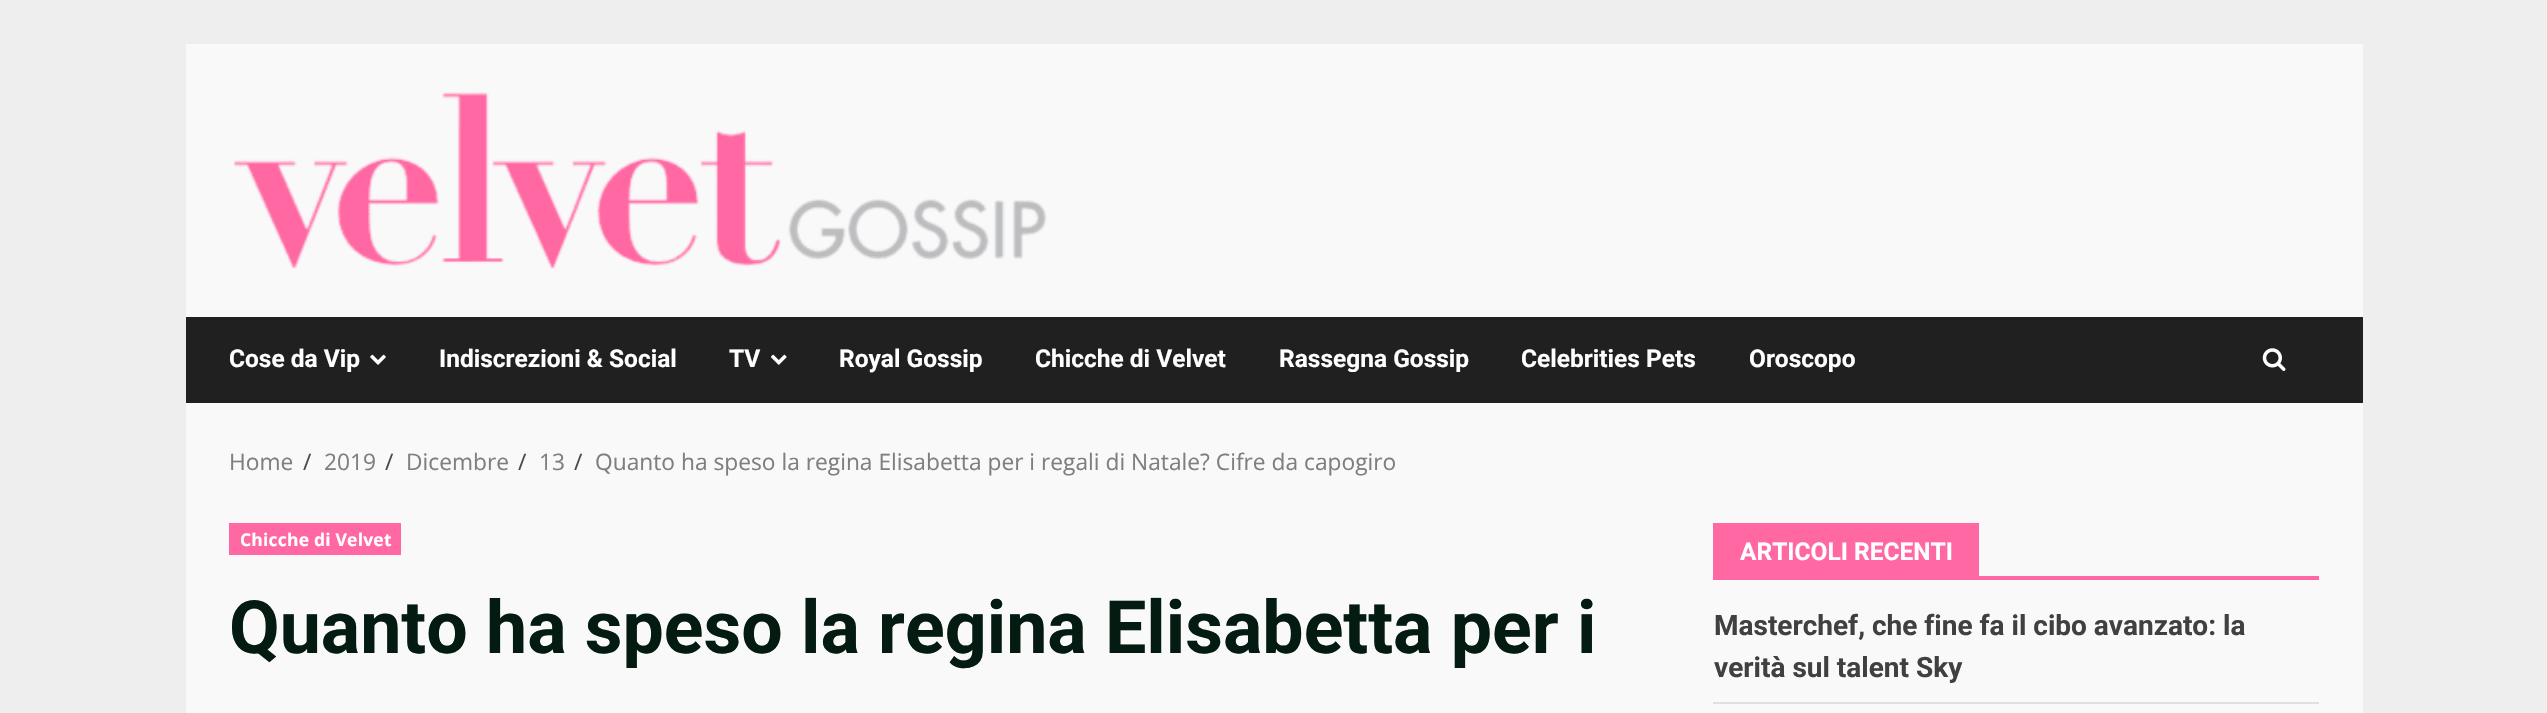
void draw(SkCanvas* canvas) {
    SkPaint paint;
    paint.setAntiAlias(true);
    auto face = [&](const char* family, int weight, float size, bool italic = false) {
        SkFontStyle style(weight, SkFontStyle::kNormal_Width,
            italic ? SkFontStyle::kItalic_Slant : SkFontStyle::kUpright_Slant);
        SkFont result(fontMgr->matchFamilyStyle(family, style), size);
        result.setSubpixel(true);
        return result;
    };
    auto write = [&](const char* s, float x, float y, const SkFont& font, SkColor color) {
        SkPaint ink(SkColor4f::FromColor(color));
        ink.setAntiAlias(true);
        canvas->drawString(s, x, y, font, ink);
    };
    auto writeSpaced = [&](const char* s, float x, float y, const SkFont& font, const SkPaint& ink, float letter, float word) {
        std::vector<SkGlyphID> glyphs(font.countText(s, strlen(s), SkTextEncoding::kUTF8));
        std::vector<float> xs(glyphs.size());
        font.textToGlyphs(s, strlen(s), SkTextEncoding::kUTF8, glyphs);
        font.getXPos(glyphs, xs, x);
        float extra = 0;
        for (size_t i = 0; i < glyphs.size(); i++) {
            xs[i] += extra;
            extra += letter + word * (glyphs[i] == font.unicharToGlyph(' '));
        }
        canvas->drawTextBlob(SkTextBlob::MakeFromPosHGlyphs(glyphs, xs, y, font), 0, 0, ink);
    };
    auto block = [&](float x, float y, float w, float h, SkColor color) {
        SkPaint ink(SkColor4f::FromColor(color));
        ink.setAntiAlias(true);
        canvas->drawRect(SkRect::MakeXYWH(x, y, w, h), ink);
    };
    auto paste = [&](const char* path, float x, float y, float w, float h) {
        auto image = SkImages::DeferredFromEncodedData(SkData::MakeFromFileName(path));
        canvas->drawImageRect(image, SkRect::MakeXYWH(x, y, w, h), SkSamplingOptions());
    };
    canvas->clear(SkColorSetRGB(238, 238, 238));
    block(186, 44, 2177, 669, SkColorSetRGB(249, 249, 249));
    paste("pic1.png", 233, 92, 814, 177);
    block(186, 317, 2177, 86, SkColorSetRGB(32, 32, 32));
    auto kFont1 = face("Roboto", 700, 24.5f);
    write("Cose da Vip", 229, 367, kFont1, SK_ColorWHITE);
    paste("pic2.png", 370, 354, 16, 11);
    write("Indiscrezioni & Social", 439, 367, kFont1, SK_ColorWHITE);
    write("TV", 729, 367, kFont1, SK_ColorWHITE);
    paste("pic3.png", 771, 354, 16, 11);
    write("Royal Gossip", 839, 367, kFont1, SK_ColorWHITE);
    write("Chicche di Velvet", 1035, 367, kFont1, SK_ColorWHITE);
    write("Rassegna Gossip", 1279, 367, kFont1, SK_ColorWHITE);
    write("Celebrities Pets", 1521, 367, kFont1, SK_ColorWHITE);
    write("Oroscopo", 1749, 367, kFont1, SK_ColorWHITE);
    paste("pic4.png", 2262, 348, 24, 23);
    auto kFont2 = face("Open Sans", 400, 22.75f);
    write("Home", 229, 470, kFont2, SkColorSetRGB(127, 127, 127));
    write("/", 303, 470, kFont2, SkColorSetRGB(74, 74, 74));
    write("2019", 324, 470, kFont2, SkColorSetRGB(127, 127, 127));
    write("/", 385, 470, kFont2, SkColorSetRGB(74, 74, 74));
    write("Dicembre", 406, 470, kFont2, SkColorSetRGB(127, 127, 127));
    write("/", 518, 470, kFont2, SkColorSetRGB(74, 74, 74));
    write("13", 539, 470, kFont2, SkColorSetRGB(127, 127, 127));
    write("/", 574, 470, kFont2, SkColorSetRGB(74, 74, 74));
    write("Quanto ha speso la regina Elisabetta per i regali di Natale? Cifre da capogiro", 595, 470, kFont2, SkColorSetRGB(127, 127, 127));
    block(229, 523, 172, 32, SkColorSetRGB(255, 104, 162));
    auto kFont3 = face("Open Sans", 700, 17.5f);
    paint.setColor(SK_ColorWHITE);
    writeSpaced("Chicche di Velvet", 240, 546, kFont3, paint, 0.2f, 0);
    auto kFont4 = face("Roboto", 700, 73.5f);
    write("Quanto ha speso la regina Elisabetta per i", 229, 653, kFont4, SkColorSetRGB(3, 27, 17));
    block(1713, 576, 606, 4, SkColorSetRGB(255, 104, 162));
    block(1713, 523, 266, 53, SkColorSetRGB(255, 104, 162));
    write("ARTICOLI RECENTI", 1740, 560, kFont1, SK_ColorWHITE);
    block(1713, 702, 606, 2, SkColorSetRGB(224, 224, 224));
    auto kFont5 = face("Roboto", 700, 28);
    write("Masterchef, che fine fa il cibo avanzato: la", 1714, 635, kFont5, SkColorSetRGB(64, 64, 64));
    write("verità sul talent Sky", 1714, 677, kFont5, SkColorSetRGB(64, 64, 64));
}
